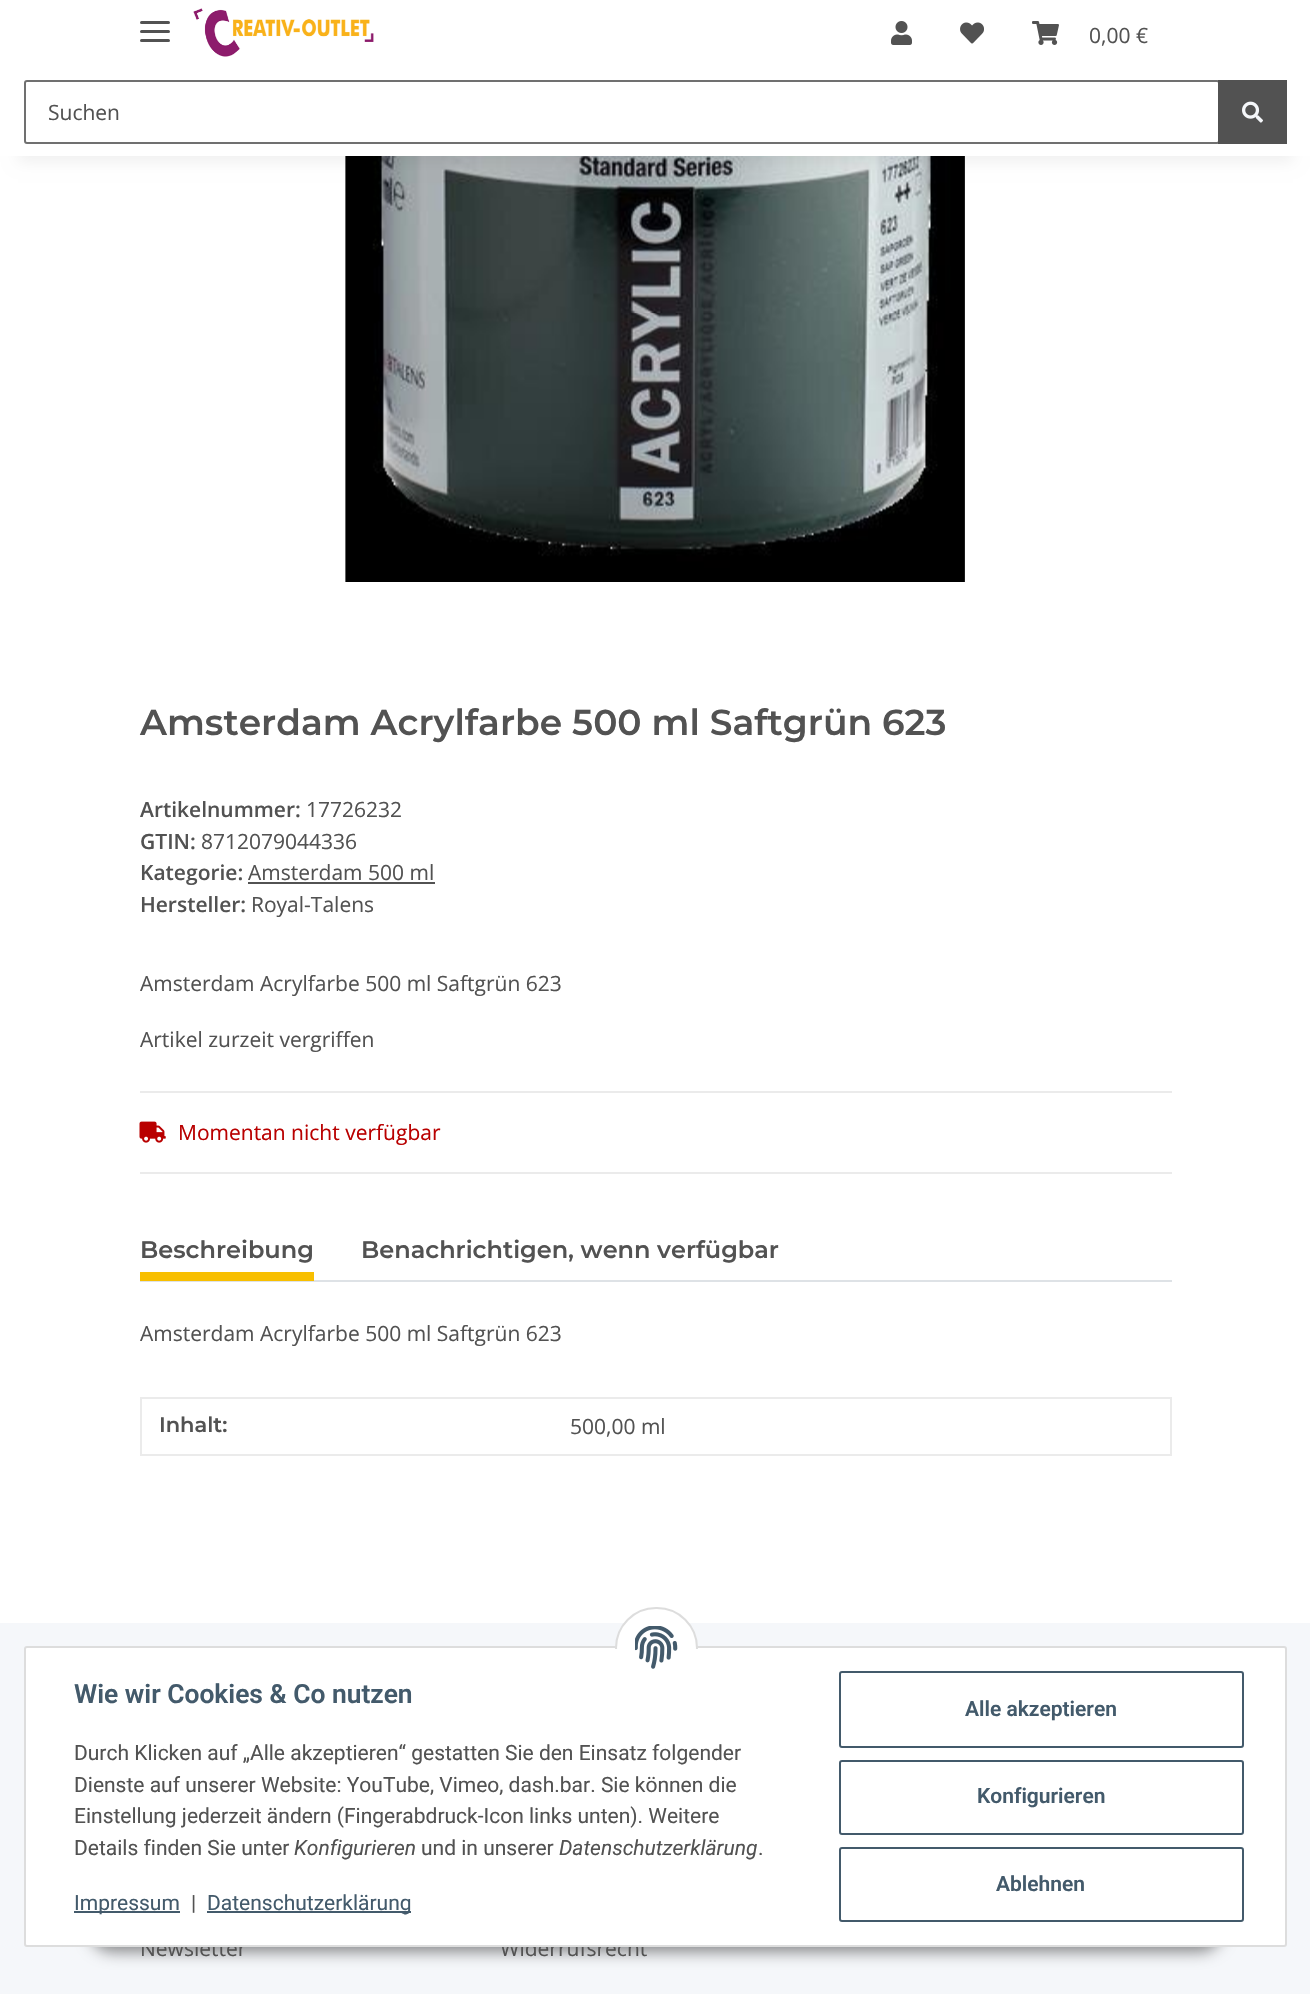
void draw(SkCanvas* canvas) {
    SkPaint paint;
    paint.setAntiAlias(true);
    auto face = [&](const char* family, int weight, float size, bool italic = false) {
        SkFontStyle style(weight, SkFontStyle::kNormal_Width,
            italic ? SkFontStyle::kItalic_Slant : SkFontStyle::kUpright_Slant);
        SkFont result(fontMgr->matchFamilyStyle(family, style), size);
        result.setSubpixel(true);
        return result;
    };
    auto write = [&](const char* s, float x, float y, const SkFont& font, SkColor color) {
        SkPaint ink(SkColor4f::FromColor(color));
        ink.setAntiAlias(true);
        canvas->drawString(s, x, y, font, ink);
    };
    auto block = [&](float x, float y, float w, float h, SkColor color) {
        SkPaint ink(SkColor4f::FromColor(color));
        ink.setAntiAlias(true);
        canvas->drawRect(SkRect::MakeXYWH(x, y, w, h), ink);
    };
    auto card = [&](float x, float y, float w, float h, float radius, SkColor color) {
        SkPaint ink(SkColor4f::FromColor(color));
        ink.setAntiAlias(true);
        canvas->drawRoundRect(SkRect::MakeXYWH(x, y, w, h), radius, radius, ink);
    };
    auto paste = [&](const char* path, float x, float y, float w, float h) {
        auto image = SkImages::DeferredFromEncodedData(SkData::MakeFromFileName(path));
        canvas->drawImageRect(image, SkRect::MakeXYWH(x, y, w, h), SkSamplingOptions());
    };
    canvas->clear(SkColorSetRGB(245, 247, 250));
    block(0, 156, 1310, 1467, SK_ColorWHITE);
    paste("pic6.png", 345, 156, 620, 426);
    paint.setColor(SkColorSetARGB(15, 0, 0, 0));
    paint.setMaskFilter(SkMaskFilter::MakeBlur(kNormal_SkBlurStyle, 7));
    canvas->drawRect(SkRect::MakeXYWH(18, 42, 1275, 120), paint);
    paint.setMaskFilter(nullptr);
    block(0, 0, 1310, 156, SK_ColorWHITE);
    card(140, 30, 30, 3, 1.5f, SkColorSetRGB(82, 82, 82));
    card(140, 21, 30, 3, 1.5f, SkColorSetRGB(82, 82, 82));
    card(140, 39, 30, 3, 1.5f, SkColorSetRGB(82, 82, 82));
    paste("pic1.png", 193, 8, 181, 49);
    paste("pic2.png", 891, 21, 21, 24);
    paste("pic3.png", 960, 22, 24, 22);
    paste("pic4.png", 1032, 21, 27, 24);
    auto kFont1 = face("Open Sans", 400, 21);
    write("0,00 €", 1089, 43, kFont1, SkColorSetRGB(82, 82, 82));
    paint.setStyle(SkPaint::kStroke_Style);
    paint.setStrokeWidth(2);
    paint.setColor(SkColorSetRGB(112, 112, 112));
    canvas->drawRoundRect(SkRect::MakeXYWH(25, 81, 1194, 62), 2, 2, paint);
    write("Suchen", 48, 120, kFont1, SkColorSetRGB(82, 82, 82));
    block(1218, 80, 69, 64, SkColorSetRGB(82, 82, 82));
    paste("pic5.png", 1242, 101, 21, 22);
    auto kFont2 = face("Montserrat", 600, 36);
    write("Amsterdam Acrylfarbe 500 ml Saftgrün 623", 140, 735, kFont2, SkColorSetRGB(82, 82, 82));
    auto kFont3 = face("Open Sans", 600, 21);
    write("Artikelnummer:", 140, 817, kFont3, SkColorSetRGB(82, 82, 82));
    write("17726232", 306, 817, kFont1, SkColorSetRGB(82, 82, 82));
    write("GTIN:", 140, 849, kFont3, SkColorSetRGB(82, 82, 82));
    write("8712079044336", 201, 849, kFont1, SkColorSetRGB(82, 82, 82));
    write("Kategorie:", 140, 880, kFont3, SkColorSetRGB(82, 82, 82));
    write("Amsterdam 500 ml", 248, 880, kFont1, SkColorSetRGB(82, 82, 82));
    block(248, 882, 187, 2, SkColorSetRGB(82, 82, 82));
    write("Hersteller:", 140, 912, kFont3, SkColorSetRGB(82, 82, 82));
    write("Royal-Talens", 251, 912, kFont1, SkColorSetRGB(82, 82, 82));
    write("Amsterdam Acrylfarbe 500 ml Saftgrün 623", 140, 991, kFont1, SkColorSetRGB(82, 82, 82));
    write("Artikel zurzeit vergriffen", 140, 1047, kFont1, SkColorSetRGB(82, 82, 82));
    block(140, 1091, 1032, 2, SkColorSetRGB(235, 235, 235));
    block(140, 1172, 1032, 2, SkColorSetRGB(235, 235, 235));
    paste("pic7.png", 139, 1121, 27, 22);
    write("Momentan nicht verfügbar", 178, 1140, kFont1, SkColorSetRGB(185, 0, 0));
    block(140, 1280, 1032, 2, SkColorSetRGB(222, 226, 230));
    auto kFont4 = face("Montserrat", 600, 24);
    write("Beschreibung", 140, 1258, kFont4, SkColorSetRGB(82, 82, 82));
    block(140, 1272, 174, 9, SkColorSetRGB(248, 191, 0));
    write("Benachrichtigen, wenn verfügbar", 361, 1258, kFont4, SkColorSetRGB(82, 82, 82));
    write("Amsterdam Acrylfarbe 500 ml Saftgrün 623", 140, 1341, kFont1, SkColorSetRGB(82, 82, 82));
    block(140, 1397, 1032, 2, SkColorSetRGB(235, 235, 235));
    block(1170, 1397, 2, 58, SkColorSetRGB(235, 235, 235));
    block(140, 1454, 1032, 2, SkColorSetRGB(235, 235, 235));
    block(140, 1397, 2, 58, SkColorSetRGB(235, 235, 235));
    auto kFont5 = face("Montserrat", 600, 21);
    write("Inhalt:", 159, 1432, kFont5, SkColorSetRGB(82, 82, 82));
    write("500,00 ml", 570, 1434, kFont1, SkColorSetRGB(82, 82, 82));
    paint.setStyle(SkPaint::kFill_Style);
    paint.setColor(SkColorSetARGB(115, 0, 0, 0));
    paint.setMaskFilter(SkMaskFilter::MakeBlur(kNormal_SkBlurStyle, 7.5f));
    canvas->drawRoundRect(SkRect::MakeXYWH(89, 1904, 1134, 48), 24, 24, paint);
    paint.setMaskFilter(nullptr);
    write("Newsletter", 140, 1956, kFont1, SkColorSetRGB(82, 82, 82));
    write("Widerrufsrecht", 500, 1956, kFont1, SkColorSetRGB(82, 82, 82));
    paint.setColor(SK_ColorWHITE);
    canvas->drawRoundRect(SkRect::MakeXYWH(25, 1647, 1261, 299), 2, 2, paint);
    paint.setStyle(SkPaint::kStroke_Style);
    paint.setColor(SkColorSetRGB(221, 221, 221));
    canvas->drawRoundRect(SkRect::MakeXYWH(25, 1647, 1261, 299), 2, 2, paint);
    paint.setStyle(SkPaint::kFill_Style);
    paint.setColor(SK_ColorWHITE);
    canvas->drawRoundRect(SkRect::MakeXYWH(616, 1608, 81, 80), 40, 40, paint);
    paint.setStyle(SkPaint::kStroke_Style);
    paint.setColor(SkColorSetRGB(221, 221, 221));
    canvas->drawRoundRect(SkRect::MakeXYWH(616, 1608, 81, 80), 40, 40, paint);
    block(615, 1649, 83, 40, SK_ColorWHITE);
    paste("pic8.png", 635, 1626, 43, 43);
    auto kFont6 = face("Roboto", 600, 26.4f);
    write("Wie wir Cookies & Co nutzen", 74, 1703, kFont6, SkColorSetRGB(67, 90, 107));
    auto kFont7 = face("Roboto", 400, 21);
    write("Durch Klicken auf „Alle akzeptieren“ gestatten Sie den Einsatz folgender", 74, 1760, kFont7, SkColorSetRGB(82, 82, 82));
    write("Dienste auf unserer Website: YouTube, Vimeo, dash.bar. Sie können die", 74, 1792, kFont7, SkColorSetRGB(82, 82, 82));
    write("Einstellung jederzeit ändern (Fingerabdruck-Icon links unten). Weitere", 74, 1823, kFont7, SkColorSetRGB(82, 82, 82));
    write("Details finden Sie unter", 74, 1855, kFont7, SkColorSetRGB(82, 82, 82));
    auto kFont8 = face("Roboto", 400, 21, true);
    write("Konfigurieren", 294, 1855, kFont8, SkColorSetRGB(82, 82, 82));
    write("und in unserer", 421, 1855, kFont7, SkColorSetRGB(82, 82, 82));
    write("Datenschutzerklärung", 559, 1855, kFont8, SkColorSetRGB(82, 82, 82));
    write(".", 758, 1855, kFont7, SkColorSetRGB(82, 82, 82));
    block(74, 1911, 106, 2, SkColorSetRGB(67, 90, 107));
    write("Impressum", 74, 1910, kFont7, SkColorSetRGB(67, 90, 107));
    write("|", 191, 1910, kFont7, SkColorSetRGB(82, 82, 82));
    block(207, 1911, 204, 2, SkColorSetRGB(67, 90, 107));
    write("Datenschutzerklärung", 207, 1910, kFont7, SkColorSetRGB(67, 90, 107));
    paint.setColor(SkColorSetRGB(67, 90, 107));
    canvas->drawRoundRect(SkRect::MakeXYWH(840, 1672, 403, 75), 2, 2, paint);
    auto kFont9 = face("Roboto", 600, 21);
    write("Alle akzeptieren", 965, 1716, kFont9, SkColorSetRGB(67, 90, 107));
    canvas->drawRoundRect(SkRect::MakeXYWH(840, 1761, 403, 73), 2, 2, paint);
    write("Konfigurieren", 977, 1803, kFont9, SkColorSetRGB(67, 90, 107));
    canvas->drawRoundRect(SkRect::MakeXYWH(840, 1848, 403, 73), 2, 2, paint);
    write("Ablehnen", 996, 1891, kFont9, SkColorSetRGB(67, 90, 107));
}
